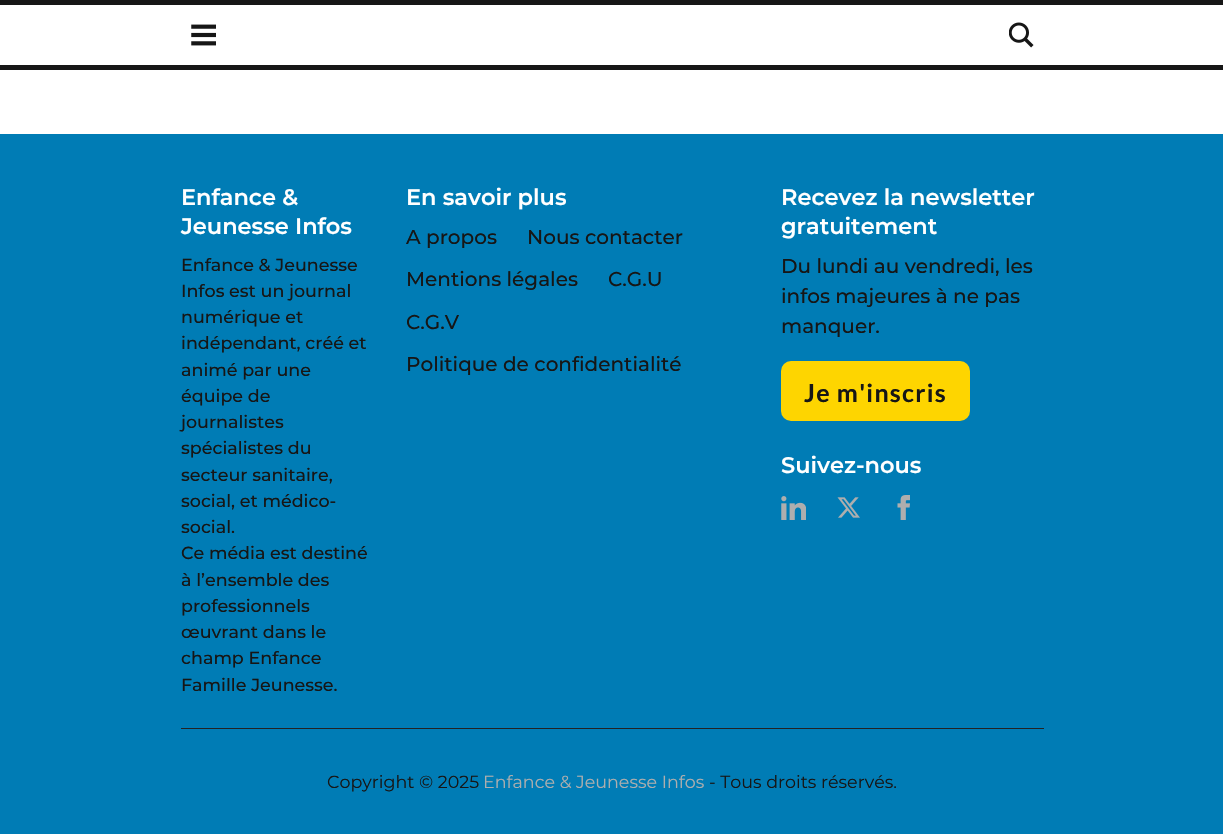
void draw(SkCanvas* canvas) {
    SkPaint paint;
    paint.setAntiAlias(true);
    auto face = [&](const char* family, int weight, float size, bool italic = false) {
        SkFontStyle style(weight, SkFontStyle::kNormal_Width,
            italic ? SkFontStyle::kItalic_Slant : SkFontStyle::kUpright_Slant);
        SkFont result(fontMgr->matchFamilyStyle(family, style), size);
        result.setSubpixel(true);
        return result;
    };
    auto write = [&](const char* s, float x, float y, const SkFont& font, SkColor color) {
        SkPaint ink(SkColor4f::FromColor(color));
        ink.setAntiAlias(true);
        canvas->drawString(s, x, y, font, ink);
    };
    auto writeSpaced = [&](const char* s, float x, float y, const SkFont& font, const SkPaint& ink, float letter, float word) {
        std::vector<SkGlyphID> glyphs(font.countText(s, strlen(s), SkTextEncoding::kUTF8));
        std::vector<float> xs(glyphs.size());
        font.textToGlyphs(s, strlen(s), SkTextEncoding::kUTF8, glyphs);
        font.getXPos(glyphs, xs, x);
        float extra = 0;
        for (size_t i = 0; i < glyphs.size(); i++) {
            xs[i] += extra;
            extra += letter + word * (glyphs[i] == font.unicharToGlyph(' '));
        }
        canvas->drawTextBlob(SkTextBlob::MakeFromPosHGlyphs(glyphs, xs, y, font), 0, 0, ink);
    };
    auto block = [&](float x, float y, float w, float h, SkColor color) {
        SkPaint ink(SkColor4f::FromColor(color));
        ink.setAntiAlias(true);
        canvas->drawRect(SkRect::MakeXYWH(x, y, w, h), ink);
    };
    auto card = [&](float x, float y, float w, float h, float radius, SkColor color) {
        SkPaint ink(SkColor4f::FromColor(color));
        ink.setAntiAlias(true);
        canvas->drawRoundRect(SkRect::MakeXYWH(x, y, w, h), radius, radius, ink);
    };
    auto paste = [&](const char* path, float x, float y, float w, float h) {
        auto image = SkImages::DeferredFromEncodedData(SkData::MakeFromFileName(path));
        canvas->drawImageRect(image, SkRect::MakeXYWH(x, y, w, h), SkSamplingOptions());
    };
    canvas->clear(SK_ColorWHITE);
    block(0, 0, 1223, 5, SkColorSetRGB(22, 22, 22));
    block(0, 65, 1223, 5, SkColorSetRGB(22, 22, 22));
    paste("pic1.png", 191, 24, 25, 22);
    paste("pic2.png", 1009, 22, 25, 26);
    block(0, 134, 1223, 700, SkColorSetRGB(0, 124, 181));
    auto kFont1 = face("Montserrat", 600, 22.5f);
    write("Enfance &", 181, 205, kFont1, SK_ColorWHITE);
    write("Jeunesse Infos", 181, 234, kFont1, SK_ColorWHITE);
    auto kFont2 = face("Montserrat", 500, 17.5f);
    write("Enfance & Jeunesse", 181, 271, kFont2, SkColorSetRGB(22, 22, 22));
    write("Infos est un journal", 181, 297, kFont2, SkColorSetRGB(22, 22, 22));
    write("numérique et", 181, 323, kFont2, SkColorSetRGB(22, 22, 22));
    write("indépendant, créé et", 181, 349, kFont2, SkColorSetRGB(22, 22, 22));
    write("animé par une", 181, 376, kFont2, SkColorSetRGB(22, 22, 22));
    write("équipe de", 181, 402, kFont2, SkColorSetRGB(22, 22, 22));
    write("journalistes", 181, 428, kFont2, SkColorSetRGB(22, 22, 22));
    write("spécialistes du", 181, 454, kFont2, SkColorSetRGB(22, 22, 22));
    write("secteur sanitaire,", 181, 481, kFont2, SkColorSetRGB(22, 22, 22));
    write("social, et médico-", 181, 507, kFont2, SkColorSetRGB(22, 22, 22));
    write("social.", 181, 533, kFont2, SkColorSetRGB(22, 22, 22));
    write("Ce média est destiné", 181, 559, kFont2, SkColorSetRGB(22, 22, 22));
    write("à l’ensemble des", 181, 586, kFont2, SkColorSetRGB(22, 22, 22));
    write("professionnels", 181, 612, kFont2, SkColorSetRGB(22, 22, 22));
    write("œuvrant dans le", 181, 638, kFont2, SkColorSetRGB(22, 22, 22));
    write("champ Enfance", 181, 664, kFont2, SkColorSetRGB(22, 22, 22));
    write("Famille Jeunesse.", 181, 691, kFont2, SkColorSetRGB(22, 22, 22));
    write("En savoir plus", 406, 205, kFont1, SK_ColorWHITE);
    auto kFont3 = face("Montserrat", 500, 20);
    write("A propos", 406, 244, kFont3, SkColorSetRGB(22, 22, 22));
    write("Nous contacter", 527, 244, kFont3, SkColorSetRGB(22, 22, 22));
    write("Mentions légales", 406, 286, kFont3, SkColorSetRGB(22, 22, 22));
    write("C.G.U", 608, 286, kFont3, SkColorSetRGB(22, 22, 22));
    write("C.G.V", 406, 329, kFont3, SkColorSetRGB(22, 22, 22));
    write("Politique de confidentialité", 406, 371, kFont3, SkColorSetRGB(22, 22, 22));
    write("Recevez la newsletter", 781, 205, kFont1, SK_ColorWHITE);
    write("gratuitement", 781, 234, kFont1, SK_ColorWHITE);
    write("Du lundi au vendredi, les", 781, 273, kFont3, SkColorSetRGB(22, 22, 22));
    write("infos majeures à ne pas", 781, 303, kFont3, SkColorSetRGB(22, 22, 22));
    write("manquer.", 781, 333, kFont3, SkColorSetRGB(22, 22, 22));
    card(781, 361, 189, 60, 10, SkColorSetRGB(254, 213, 0));
    auto kFont4 = face("Lato", 700, 25);
    paint.setColor(SkColorSetRGB(22, 22, 22));
    writeSpaced("Je m'inscris", 804, 402, kFont4, paint, 1.25f, 0);
    write("Suivez-nous", 781, 473, kFont1, SK_ColorWHITE);
    paste("pic3.png", 781, 496, 25, 24);
    paste("pic4.png", 837, 497, 23, 21);
    paste("pic5.png", 897, 495, 13, 25);
    block(181, 728, 863, 1, SkColorSetRGB(35, 35, 35));
    auto kFont5 = face("Montserrat", 400, 17.5f);
    write("Copyright © 2025", 327, 788, kFont5, SkColorSetRGB(22, 22, 22));
    write("Enfance & Jeunesse Infos", 483, 788, kFont5, SkColorSetRGB(174, 174, 174));
    write("- Tous droits réservés.", 709, 788, kFont5, SkColorSetRGB(22, 22, 22));
}
